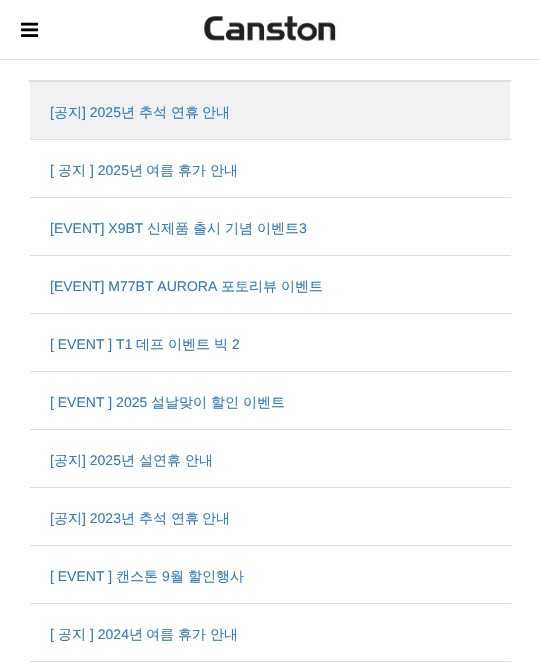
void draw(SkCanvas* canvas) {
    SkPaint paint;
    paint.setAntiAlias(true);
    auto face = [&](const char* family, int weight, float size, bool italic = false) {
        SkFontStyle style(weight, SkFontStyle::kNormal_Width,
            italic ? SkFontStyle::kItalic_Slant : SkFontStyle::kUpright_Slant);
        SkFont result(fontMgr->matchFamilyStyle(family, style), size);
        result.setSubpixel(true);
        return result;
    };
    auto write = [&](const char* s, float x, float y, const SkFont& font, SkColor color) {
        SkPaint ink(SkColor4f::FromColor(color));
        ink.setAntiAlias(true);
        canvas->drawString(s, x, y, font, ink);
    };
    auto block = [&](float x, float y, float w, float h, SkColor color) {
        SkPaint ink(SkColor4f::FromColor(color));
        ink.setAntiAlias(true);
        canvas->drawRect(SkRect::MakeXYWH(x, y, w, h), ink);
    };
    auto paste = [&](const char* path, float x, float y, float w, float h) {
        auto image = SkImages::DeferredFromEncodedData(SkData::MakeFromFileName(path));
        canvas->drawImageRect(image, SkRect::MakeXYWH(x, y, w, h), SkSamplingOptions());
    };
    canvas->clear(SK_ColorWHITE);
    block(0, 59, 540, 1, SkColorSetRGB(228, 228, 228));
    paste("pic1.png", 21, 22, 18, 15);
    paste("pic2.png", 204, 16, 135, 27);
    block(29, 80, 482, 2, SkColorSetRGB(221, 221, 221));
    block(30, 82, 480, 57, SkColorSetRGB(241, 241, 241));
    auto kFont1 = face("Liberation Sans", 400, 14);
    write("[", 50, 117, kFont1, SkColorSetRGB(51, 122, 183));
    auto kFont2 = face("WenQuanYi Zen Hei", 500, 14);
    write("공지", 54, 117, kFont2, SkColorSetRGB(51, 122, 183));
    write("] 2025", 82, 117, kFont1, SkColorSetRGB(51, 122, 183));
    write("년", 121, 117, kFont2, SkColorSetRGB(51, 122, 183));
    write("추석", 139, 117, kFont2, SkColorSetRGB(51, 122, 183));
    write("연휴", 171, 117, kFont2, SkColorSetRGB(51, 122, 183));
    write("안내", 202, 117, kFont2, SkColorSetRGB(51, 122, 183));
    block(30, 139, 481, 1, SkColorSetRGB(221, 221, 221));
    write("[", 50, 175, kFont1, SkColorSetRGB(51, 122, 183));
    write("공지", 58, 175, kFont2, SkColorSetRGB(51, 122, 183));
    write("] 2025", 90, 175, kFont1, SkColorSetRGB(51, 122, 183));
    write("년", 129, 175, kFont2, SkColorSetRGB(51, 122, 183));
    write("여름", 146, 175, kFont2, SkColorSetRGB(51, 122, 183));
    write("휴가", 178, 175, kFont2, SkColorSetRGB(51, 122, 183));
    write("안내", 210, 175, kFont2, SkColorSetRGB(51, 122, 183));
    block(30, 197, 481, 1, SkColorSetRGB(221, 221, 221));
    write("[EVENT] X9BT", 50, 233, kFont1, SkColorSetRGB(51, 122, 183));
    write("신제품", 147, 233, kFont2, SkColorSetRGB(51, 122, 183));
    write("출시", 193, 233, kFont2, SkColorSetRGB(51, 122, 183));
    write("기념", 225, 233, kFont2, SkColorSetRGB(51, 122, 183));
    write("이벤트", 257, 233, kFont2, SkColorSetRGB(51, 122, 183));
    write("3", 299, 233, kFont1, SkColorSetRGB(51, 122, 183));
    block(30, 255, 481, 1, SkColorSetRGB(221, 221, 221));
    write("[EVENT] M77BT AURORA", 50, 291, kFont1, SkColorSetRGB(51, 122, 183));
    write("포토리뷰", 221, 291, kFont2, SkColorSetRGB(51, 122, 183));
    write("이벤트", 281, 291, kFont2, SkColorSetRGB(51, 122, 183));
    block(30, 313, 481, 1, SkColorSetRGB(221, 221, 221));
    write("[ EVENT ] T1", 50, 349, kFont1, SkColorSetRGB(51, 122, 183));
    write("데프", 136, 349, kFont2, SkColorSetRGB(51, 122, 183));
    write("이벤트", 168, 349, kFont2, SkColorSetRGB(51, 122, 183));
    write("빅", 214, 349, kFont2, SkColorSetRGB(51, 122, 183));
    write("2", 232, 349, kFont1, SkColorSetRGB(51, 122, 183));
    block(30, 371, 481, 1, SkColorSetRGB(221, 221, 221));
    write("[ EVENT ] 2025", 50, 407, kFont1, SkColorSetRGB(51, 122, 183));
    write("설날맞이", 151, 407, kFont2, SkColorSetRGB(51, 122, 183));
    write("할인", 211, 407, kFont2, SkColorSetRGB(51, 122, 183));
    write("이벤트", 243, 407, kFont2, SkColorSetRGB(51, 122, 183));
    block(30, 429, 481, 1, SkColorSetRGB(221, 221, 221));
    write("[", 50, 465, kFont1, SkColorSetRGB(51, 122, 183));
    write("공지", 54, 465, kFont2, SkColorSetRGB(51, 122, 183));
    write("] 2025", 82, 465, kFont1, SkColorSetRGB(51, 122, 183));
    write("년", 121, 465, kFont2, SkColorSetRGB(51, 122, 183));
    write("설연휴", 139, 465, kFont2, SkColorSetRGB(51, 122, 183));
    write("안내", 185, 465, kFont2, SkColorSetRGB(51, 122, 183));
    block(30, 487, 481, 1, SkColorSetRGB(221, 221, 221));
    write("[", 50, 523, kFont1, SkColorSetRGB(51, 122, 183));
    write("공지", 54, 523, kFont2, SkColorSetRGB(51, 122, 183));
    write("] 2023", 82, 523, kFont1, SkColorSetRGB(51, 122, 183));
    write("년", 121, 523, kFont2, SkColorSetRGB(51, 122, 183));
    write("추석", 139, 523, kFont2, SkColorSetRGB(51, 122, 183));
    write("연휴", 171, 523, kFont2, SkColorSetRGB(51, 122, 183));
    write("안내", 202, 523, kFont2, SkColorSetRGB(51, 122, 183));
    block(30, 545, 481, 1, SkColorSetRGB(221, 221, 221));
    write("[ EVENT ]", 50, 581, kFont1, SkColorSetRGB(51, 122, 183));
    write("캔스톤", 116, 581, kFont2, SkColorSetRGB(51, 122, 183));
    write("9", 162, 581, kFont1, SkColorSetRGB(51, 122, 183));
    write("월", 170, 581, kFont2, SkColorSetRGB(51, 122, 183));
    write("할인행사", 188, 581, kFont2, SkColorSetRGB(51, 122, 183));
    block(30, 603, 481, 1, SkColorSetRGB(221, 221, 221));
    write("[", 50, 639, kFont1, SkColorSetRGB(51, 122, 183));
    write("공지", 58, 639, kFont2, SkColorSetRGB(51, 122, 183));
    write("] 2024", 90, 639, kFont1, SkColorSetRGB(51, 122, 183));
    write("년", 129, 639, kFont2, SkColorSetRGB(51, 122, 183));
    write("여름", 146, 639, kFont2, SkColorSetRGB(51, 122, 183));
    write("휴가", 178, 639, kFont2, SkColorSetRGB(51, 122, 183));
    write("안내", 210, 639, kFont2, SkColorSetRGB(51, 122, 183));
    block(30, 661, 481, 1, SkColorSetRGB(221, 221, 221));
}
